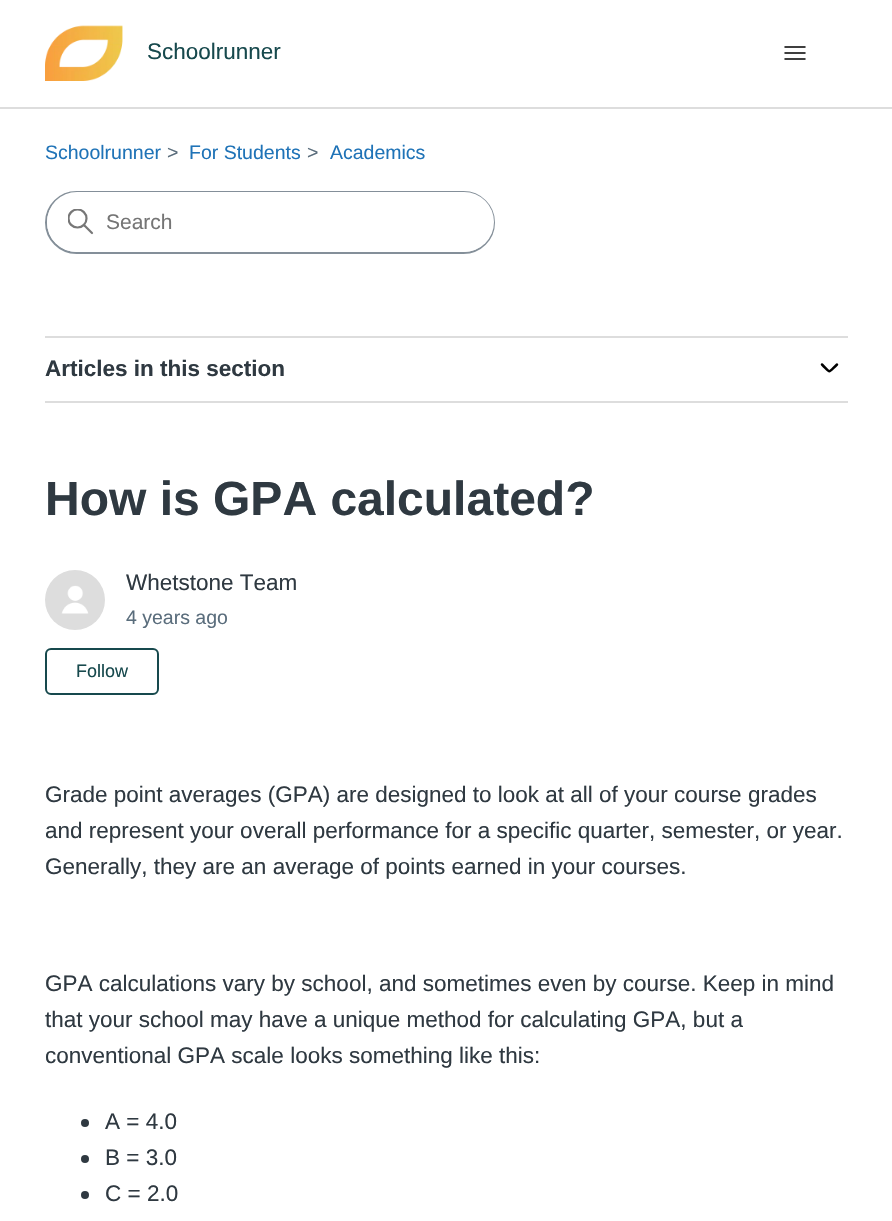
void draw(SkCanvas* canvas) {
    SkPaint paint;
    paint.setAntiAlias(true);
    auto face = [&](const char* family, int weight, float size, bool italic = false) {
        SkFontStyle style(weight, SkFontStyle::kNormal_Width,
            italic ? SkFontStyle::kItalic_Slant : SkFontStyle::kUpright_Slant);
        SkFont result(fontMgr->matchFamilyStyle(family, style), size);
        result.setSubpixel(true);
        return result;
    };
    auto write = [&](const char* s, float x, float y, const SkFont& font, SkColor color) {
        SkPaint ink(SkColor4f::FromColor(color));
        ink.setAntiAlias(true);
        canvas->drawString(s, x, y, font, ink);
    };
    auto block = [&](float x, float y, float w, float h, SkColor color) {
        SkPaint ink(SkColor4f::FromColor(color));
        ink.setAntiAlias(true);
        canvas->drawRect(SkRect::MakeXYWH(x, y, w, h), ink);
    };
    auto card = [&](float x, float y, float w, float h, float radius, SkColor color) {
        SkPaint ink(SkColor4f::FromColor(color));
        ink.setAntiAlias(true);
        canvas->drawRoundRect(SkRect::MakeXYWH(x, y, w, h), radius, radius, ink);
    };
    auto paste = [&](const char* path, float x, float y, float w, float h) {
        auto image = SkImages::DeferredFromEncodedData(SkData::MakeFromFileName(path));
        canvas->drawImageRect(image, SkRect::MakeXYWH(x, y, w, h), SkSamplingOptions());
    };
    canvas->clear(SK_ColorWHITE);
    paste("pic1.png", 45, 25, 78, 56);
    auto kFont1 = face("Liberation Sans", 400, 22.5f);
    write("Schoolrunner", 147, 59, kFont1, SkColorSetRGB(23, 73, 77));
    paint.setStyle(SkPaint::kStroke_Style);
    paint.setStrokeWidth(1.5f);
    paint.setStrokeCap(SkPaint::kRound_Cap);
    paint.setColor(SK_ColorBLACK);
    canvas->drawPath(SkPathBuilder().moveTo(785, 47).lineTo(805, 47).moveTo(785, 53).lineTo(805, 53).moveTo(785, 59).lineTo(805, 59).detach(), paint);
    block(0, 107, 892, 2, SkColorSetRGB(221, 221, 221));
    auto kFont2 = face("Liberation Sans", 400, 19.5f);
    write("Schoolrunner", 45, 159, kFont2, SkColorSetRGB(31, 115, 183));
    write(">", 167, 159, kFont2, SkColorSetRGB(90, 109, 124));
    write("For Students", 189, 159, kFont2, SkColorSetRGB(31, 115, 183));
    write(">", 307, 159, kFont2, SkColorSetRGB(90, 109, 124));
    write("Academics", 330, 159, kFont2, SkColorSetRGB(31, 115, 183));
    paint.setStrokeWidth(2);
    paint.setStrokeCap(SkPaint::kButt_Cap);
    paint.setColor(SkColorSetRGB(132, 143, 153));
    canvas->drawRoundRect(SkRect::MakeXYWH(46, 192, 448, 61), 30.5f, 30.5f, paint);
    card(47, 192, 447, 60, 30, SK_ColorWHITE);
    canvas->save();
    canvas->clipRect(SkRect::MakeXYWH(68, 209, 27, 27));
    paint.setStrokeWidth(2.2f);
    paint.setColor(SkColorSetRGB(119, 119, 119));
    canvas->drawCircle(77.5f, 218.5f, 9, paint);
    canvas->restore();
    paint.setStrokeCap(SkPaint::kRound_Cap);
    canvas->drawPath(SkPathBuilder().moveTo(92, 233).lineTo(84.5f, 225.5f).detach(), paint);
    auto kFont3 = face("Liberation Sans", 400, 21);
    write("Search", 106, 229, kFont3, SkColorSetRGB(117, 117, 117));
    block(45, 336, 803, 2, SkColorSetRGB(221, 221, 221));
    block(45, 401, 803, 2, SkColorSetRGB(221, 221, 221));
    auto kFont4 = face("Liberation Sans", 700, 22.5f);
    write("Articles in this section", 45, 376, kFont4, SkColorSetRGB(47, 57, 65));
    paint.setStrokeWidth(2.5f);
    paint.setColor(SK_ColorBLACK);
    canvas->drawPath(SkPathBuilder().moveTo(822, 364.5f).cubicTo(831, 373.5f, 827.5f, 373.5f, 837, 364.5f).detach(), paint);
    auto kFont5 = face("Liberation Sans", 700, 48);
    write("How is GPA calculated?", 45, 515, kFont5, SkColorSetRGB(47, 57, 65));
    paste("pic2.png", 45, 570, 60, 60);
    write("Whetstone Team", 126, 590, kFont1, SkColorSetRGB(47, 57, 65));
    write("4 years ago", 126, 624, kFont2, SkColorSetRGB(90, 109, 124));
    paint.setStrokeWidth(2);
    paint.setStrokeCap(SkPaint::kButt_Cap);
    paint.setColor(SkColorSetRGB(23, 73, 77));
    canvas->drawRoundRect(SkRect::MakeXYWH(46, 649, 112, 45), 5, 5, paint);
    auto kFont6 = face("Liberation Sans", 400, 18);
    write("Follow", 76, 677, kFont6, SkColorSetRGB(23, 73, 77));
    write("Grade point averages (GPA) are designed to look at all of your course grades", 45, 802, kFont1, SkColorSetRGB(47, 57, 65));
    write("and represent your overall performance for a specific quarter, semester, or year.", 45, 838, kFont1, SkColorSetRGB(47, 57, 65));
    write("Generally, they are an average of points earned in your courses.", 45, 874, kFont1, SkColorSetRGB(47, 57, 65));
    write("GPA calculations vary by school, and sometimes even by course. Keep in mind", 45, 991, kFont1, SkColorSetRGB(47, 57, 65));
    write("that your school may have a unique method for calculating GPA, but a", 45, 1027, kFont1, SkColorSetRGB(47, 57, 65));
    write("conventional GPA scale looks something like this:", 45, 1063, kFont1, SkColorSetRGB(47, 57, 65));
    paint.setStyle(SkPaint::kFill_Style);
    paint.setColor(SkColorSetRGB(47, 57, 65));
    canvas->drawCircle(85, 1123, 4, paint);
    write("A = 4.0", 105, 1129, kFont1, SkColorSetRGB(47, 57, 65));
    canvas->drawCircle(85, 1159, 4, paint);
    write("B = 3.0", 105, 1165, kFont1, SkColorSetRGB(47, 57, 65));
    canvas->drawCircle(85, 1195, 4, paint);
    write("C = 2.0", 105, 1201, kFont1, SkColorSetRGB(47, 57, 65));
}
